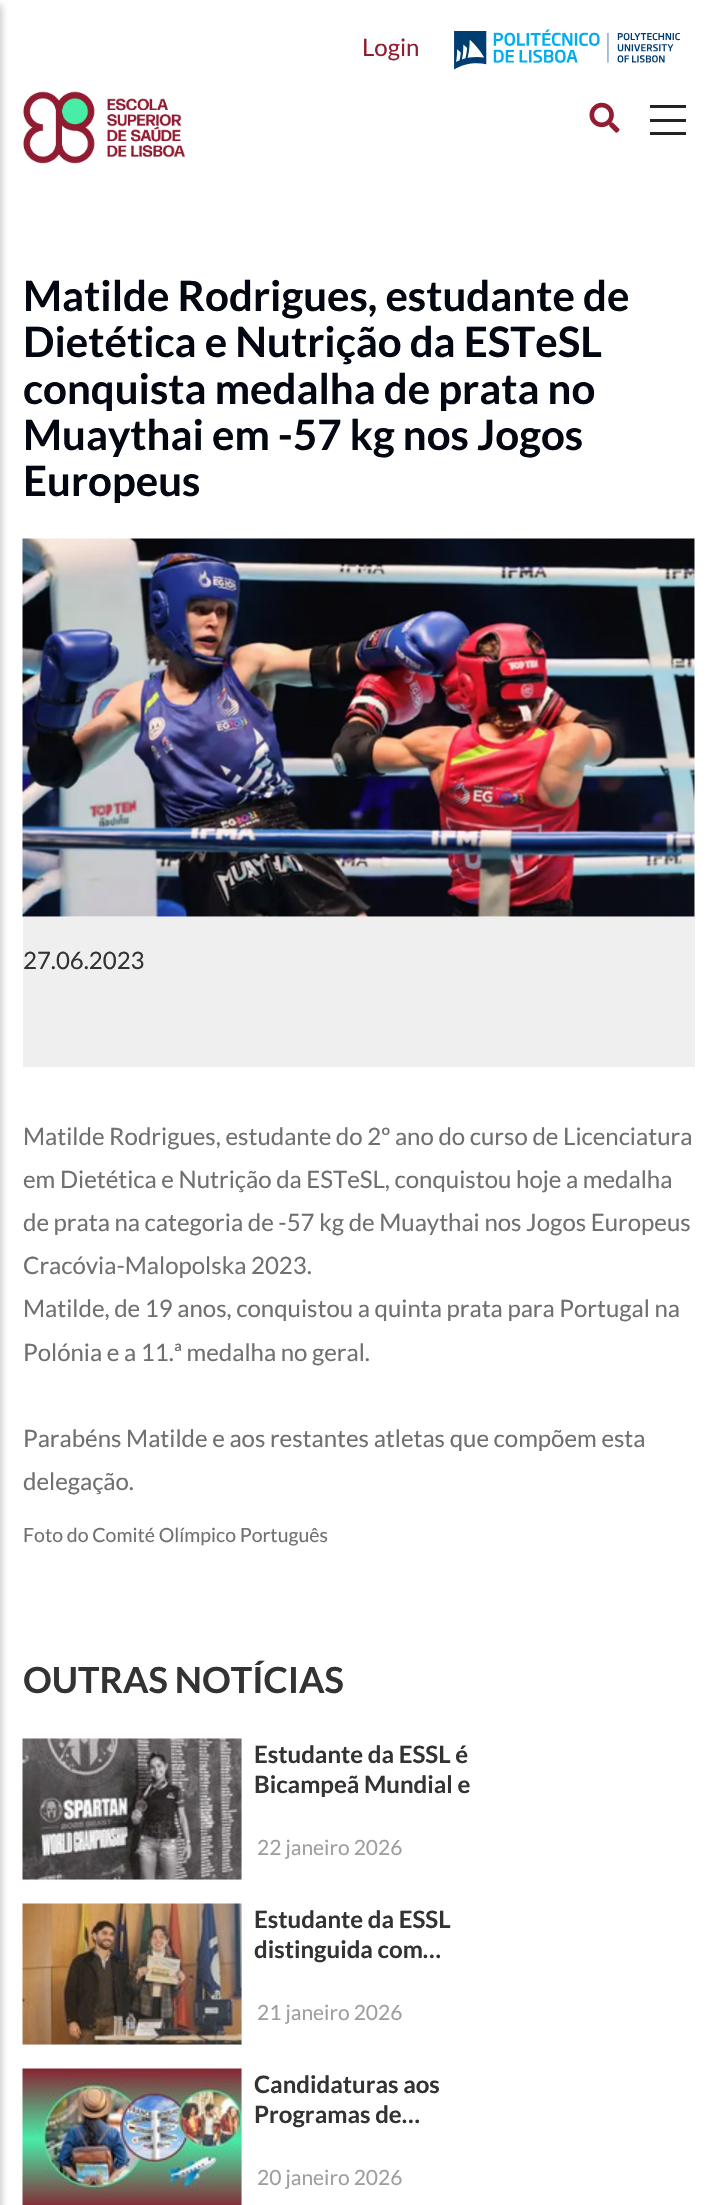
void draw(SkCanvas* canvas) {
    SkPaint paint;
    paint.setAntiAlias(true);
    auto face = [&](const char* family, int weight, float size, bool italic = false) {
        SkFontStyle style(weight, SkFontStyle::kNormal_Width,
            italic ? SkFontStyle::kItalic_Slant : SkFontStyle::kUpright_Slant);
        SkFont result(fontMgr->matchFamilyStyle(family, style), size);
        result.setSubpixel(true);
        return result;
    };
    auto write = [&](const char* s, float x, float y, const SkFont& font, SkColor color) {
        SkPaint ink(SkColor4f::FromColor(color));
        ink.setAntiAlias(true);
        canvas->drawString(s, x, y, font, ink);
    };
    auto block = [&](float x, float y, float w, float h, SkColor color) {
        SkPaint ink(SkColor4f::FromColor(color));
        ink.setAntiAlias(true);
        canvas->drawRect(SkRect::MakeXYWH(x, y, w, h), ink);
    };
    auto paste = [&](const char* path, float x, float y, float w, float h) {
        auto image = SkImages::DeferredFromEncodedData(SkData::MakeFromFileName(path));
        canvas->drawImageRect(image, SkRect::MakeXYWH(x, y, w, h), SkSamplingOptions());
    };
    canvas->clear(SK_ColorWHITE);
    paint.setColor(SkColorSetARGB(51, 0, 0, 0));
    paint.setMaskFilter(SkMaskFilter::MakeBlur(kNormal_SkBlurStyle, 3));
    canvas->drawRect(SkRect::MakeXYWH(-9, 5, 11, 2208), paint);
    paint.setMaskFilter(nullptr);
    paste("pic1.png", 589, 102, 31, 31);
    block(650, 105, 36, 3, SkColorSetRGB(34, 34, 34));
    block(650, 119, 36, 3, SkColorSetRGB(34, 34, 34));
    block(650, 132, 36, 3, SkColorSetRGB(34, 34, 34));
    paste("pic2.png", 23, 91, 163, 73);
    auto kFont1 = face("Lato", 400, 24);
    write("Login", 362, 56, kFont1, SkColorSetRGB(146, 28, 49));
    paste("pic3.png", 454, 29, 226, 41);
    auto kFont2 = face("Lato", 700, 42);
    write("Matilde Rodrigues, estudante de", 23, 311, kFont2, SkColorSetRGB(3, 7, 18));
    write("Dietética e Nutrição da ESTeSL", 23, 357, kFont2, SkColorSetRGB(3, 7, 18));
    write("conquista medalha de prata no", 23, 404, kFont2, SkColorSetRGB(3, 7, 18));
    write("Muaythai em -57 kg nos Jogos", 23, 450, kFont2, SkColorSetRGB(3, 7, 18));
    write("Europeus", 23, 496, kFont2, SkColorSetRGB(3, 7, 18));
    paste("pic4.png", 22, 538, 673, 379);
    block(23, 917, 672, 150, SkColorSetRGB(239, 239, 239));
    write("27.06.2023", 23, 969, kFont1, SkColorSetRGB(51, 51, 51));
    write("Matilde Rodrigues, estudante do 2º ano do curso de Licenciatura", 23, 1145, kFont1, SkColorSetRGB(112, 112, 112));
    write("em Dietética e Nutrição da ESTeSL, conquistou hoje a medalha", 23, 1188, kFont1, SkColorSetRGB(112, 112, 112));
    write("de prata na categoria de -57 kg de Muaythai nos Jogos Europeus", 23, 1231, kFont1, SkColorSetRGB(112, 112, 112));
    write("Cracóvia-Malopolska 2023.", 23, 1274, kFont1, SkColorSetRGB(112, 112, 112));
    write("Matilde, de 19 anos, conquistou a quinta prata para Portugal na", 23, 1317, kFont1, SkColorSetRGB(112, 112, 112));
    write("Polónia e a 11.ª medalha no geral.", 23, 1361, kFont1, SkColorSetRGB(112, 112, 112));
    write("Parabéns Matilde e aos restantes atletas que compõem esta", 23, 1447, kFont1, SkColorSetRGB(112, 112, 112));
    write("delegação.", 23, 1490, kFont1, SkColorSetRGB(112, 112, 112));
    auto kFont3 = face("Lato", 400, 19.5f);
    write("Foto do Comité Olímpico Português", 23, 1542, kFont3, SkColorSetRGB(112, 112, 112));
    auto kFont4 = face("Lato", 700, 36);
    write("OUTRAS NOTÍCIAS", 23, 1693, kFont4, SkColorSetRGB(51, 51, 51));
    block(23, 1739, 219, 141, SkColorSetRGB(239, 239, 239));
    paste("pic5.png", 22, 1738, 220, 142);
    auto kFont5 = face("Lato", 700, 24);
    write("Estudante da ESSL é", 254, 1763, kFont5, SkColorSetRGB(51, 51, 51));
    write("Bicampeã Mundial e", 254, 1793, kFont5, SkColorSetRGB(51, 51, 51));
    auto kFont6 = face("Lato", 400, 21);
    write("22 janeiro 2026", 257, 1855, kFont6, SkColorSetRGB(158, 158, 158));
    block(23, 1904, 219, 141, SkColorSetRGB(239, 239, 239));
    paste("pic6.png", 22, 1903, 220, 142);
    write("Estudante da ESSL", 254, 1928, kFont5, SkColorSetRGB(51, 51, 51));
    write("distinguida com…", 254, 1958, kFont5, SkColorSetRGB(51, 51, 51));
    write("21 janeiro 2026", 257, 2020, kFont6, SkColorSetRGB(158, 158, 158));
    block(241, 2069, 1, 136, SkColorSetRGB(239, 239, 239));
    paste("pic7.png", 22, 2068, 220, 137);
    write("Candidaturas aos", 254, 2093, kFont5, SkColorSetRGB(51, 51, 51));
    write("Programas de…", 254, 2123, kFont5, SkColorSetRGB(51, 51, 51));
    write("20 janeiro 2026", 257, 2185, kFont6, SkColorSetRGB(158, 158, 158));
}
